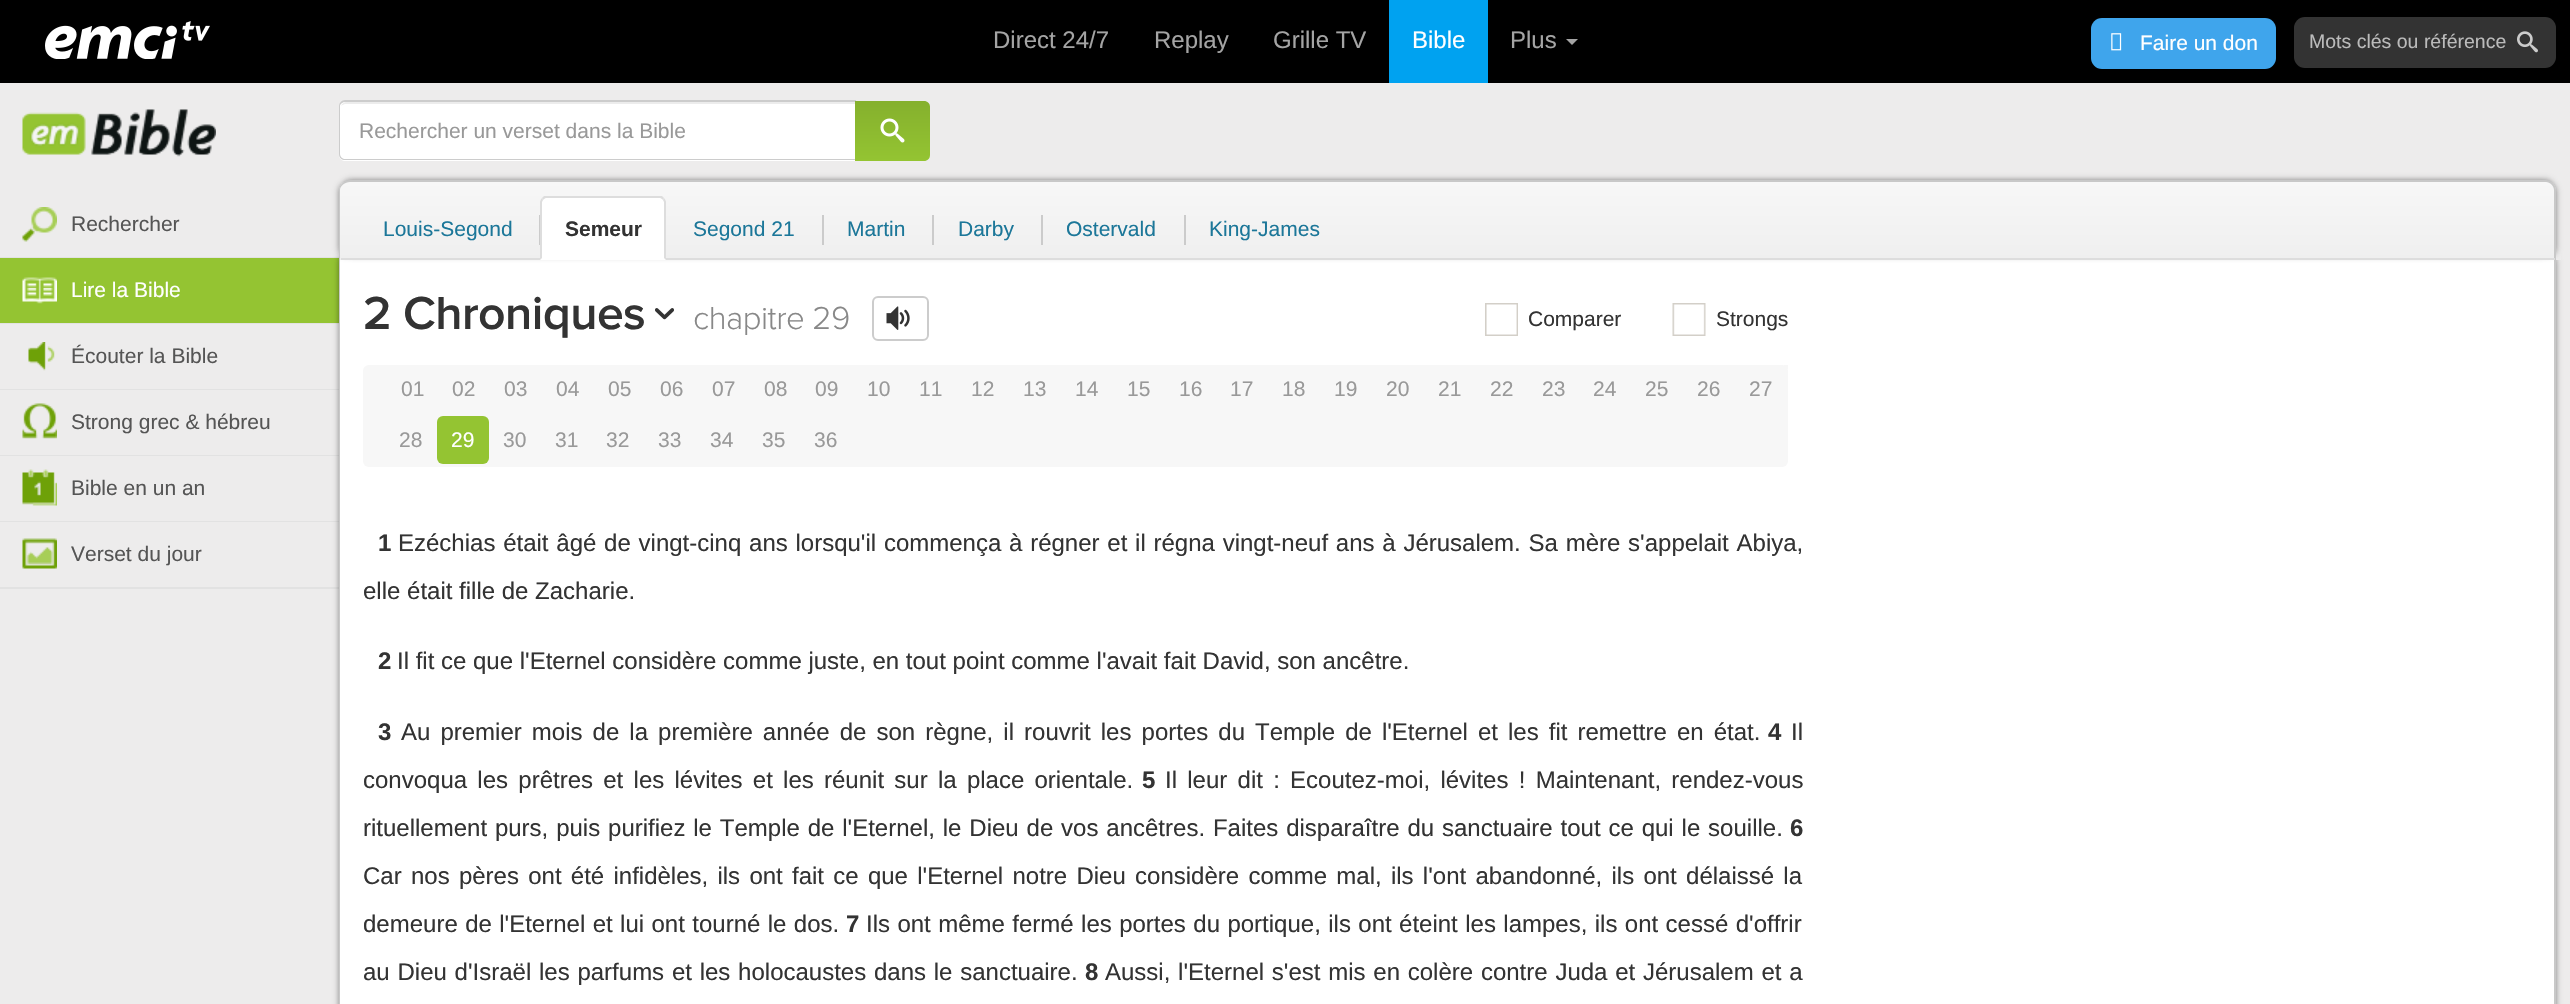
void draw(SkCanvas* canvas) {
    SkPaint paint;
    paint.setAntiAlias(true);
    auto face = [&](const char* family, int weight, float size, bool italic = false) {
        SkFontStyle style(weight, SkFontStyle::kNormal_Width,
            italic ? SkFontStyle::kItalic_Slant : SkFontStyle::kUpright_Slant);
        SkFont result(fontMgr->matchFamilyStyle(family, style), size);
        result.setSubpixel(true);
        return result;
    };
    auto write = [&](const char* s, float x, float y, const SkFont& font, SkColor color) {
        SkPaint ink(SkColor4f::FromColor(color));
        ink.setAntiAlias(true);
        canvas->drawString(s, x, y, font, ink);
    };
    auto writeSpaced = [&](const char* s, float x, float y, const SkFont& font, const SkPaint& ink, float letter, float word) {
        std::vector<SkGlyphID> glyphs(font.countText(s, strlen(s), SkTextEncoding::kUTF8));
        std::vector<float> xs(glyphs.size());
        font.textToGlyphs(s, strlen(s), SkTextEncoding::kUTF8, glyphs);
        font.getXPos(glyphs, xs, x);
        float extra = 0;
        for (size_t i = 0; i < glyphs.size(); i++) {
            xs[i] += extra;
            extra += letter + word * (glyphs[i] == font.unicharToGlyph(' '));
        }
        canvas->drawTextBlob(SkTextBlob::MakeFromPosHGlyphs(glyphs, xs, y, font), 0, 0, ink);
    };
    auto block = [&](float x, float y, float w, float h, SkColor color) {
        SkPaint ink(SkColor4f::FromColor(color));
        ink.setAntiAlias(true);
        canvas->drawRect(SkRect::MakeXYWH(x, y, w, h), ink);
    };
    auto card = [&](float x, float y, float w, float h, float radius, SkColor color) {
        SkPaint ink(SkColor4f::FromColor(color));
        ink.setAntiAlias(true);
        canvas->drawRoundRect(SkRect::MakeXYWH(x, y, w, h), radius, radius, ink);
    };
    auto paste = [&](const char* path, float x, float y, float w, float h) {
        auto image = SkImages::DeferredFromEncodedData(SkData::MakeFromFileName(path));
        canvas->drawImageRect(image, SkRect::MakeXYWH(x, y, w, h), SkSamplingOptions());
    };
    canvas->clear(SkColorSetRGB(237, 236, 236));
    block(0, 0, 2570, 83, SK_ColorBLACK);
    paste("pic1.png", 45, 21, 165, 38);
    auto kFont1 = face("Liberation Sans", 400, 24);
    write("Direct 24/7", 993, 48, kFont1, SkColorSetRGB(164, 164, 164));
    write("Replay", 1154, 48, kFont1, SkColorSetRGB(164, 164, 164));
    write("Grille TV", 1273, 48, kFont1, SkColorSetRGB(164, 164, 164));
    block(1389, 0, 99, 83, SkColorSetRGB(0, 162, 240));
    write("Bible", 1412, 48, kFont1, SK_ColorWHITE);
    write("Plus", 1510, 48, kFont1, SkColorSetRGB(164, 164, 164));
    paint.setColor(SkColorSetRGB(164, 164, 164));
    canvas->drawPath(SkPathBuilder().moveTo(1566, 39).lineTo(1578, 39).lineTo(1572, 45).close().detach(), paint);
    card(2091, 18, 185, 51, 11, SkColorSetRGB(63, 165, 236));
    paste("pic2.png", 2111, 33, 11, 18);
    auto kFont2 = face("Liberation Sans", 400, 21);
    write("Faire un don", 2140, 50, kFont2, SK_ColorWHITE);
    card(2294, 17, 262, 51, 11, SkColorSetRGB(51, 51, 51));
    auto kFont3 = face("Liberation Sans", 400, 19.5f);
    write("Mots clés ou référence", 2309, 48, kFont3, SkColorSetRGB(187, 187, 187));
    paste("pic3.png", 2517, 31, 21, 22);
    block(0, 257, 339, 1, SkColorSetRGB(226, 226, 226));
    block(0, 258, 339, 65, SkColorSetRGB(148, 196, 50));
    block(0, 323, 339, 1, SkColorSetRGB(226, 226, 226));
    block(0, 389, 339, 1, SkColorSetRGB(226, 226, 226));
    block(0, 455, 339, 1, SkColorSetRGB(226, 226, 226));
    block(0, 521, 339, 1, SkColorSetRGB(226, 226, 226));
    block(0, 587, 339, 2, SkColorSetRGB(226, 226, 226));
    paint.setColor(SkColorSetARGB(102, 0, 0, 0));
    paint.setMaskFilter(SkMaskFilter::MakeBlur(kNormal_SkBlurStyle, 3));
    canvas->drawRoundRect(SkRect::MakeXYWH(348, 255, 2208, 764), 6, 6, paint);
    paint.setMaskFilter(nullptr);
    paint.setMaskFilter(SkMaskFilter::MakeBlur(kNormal_SkBlurStyle, 3));
    canvas->drawRoundRect(SkRect::MakeXYWH(339, 255, 2208, 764), 6, 6, paint);
    paint.setMaskFilter(nullptr);
    paint.setMaskFilter(SkMaskFilter::MakeBlur(kNormal_SkBlurStyle, 3));
    canvas->drawRoundRect(SkRect::MakeXYWH(344, 260, 2208, 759), 6, 6, paint);
    paint.setMaskFilter(nullptr);
    block(340, 260, 2214, 744, SK_ColorWHITE);
    paint.setColor(SkColorSetRGB(200, 200, 200));
    canvas->drawPath(SkPathBuilder(SkPathFillType::kEvenOdd).moveTo(339, 250).lineTo(2556, 250).lineTo(2556, 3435).cubicTo(2556, 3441, 2551, 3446, 2546, 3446).lineTo(350, 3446).cubicTo(344, 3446, 339, 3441, 339, 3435).close().moveTo(340, 250).lineTo(2554, 250).lineTo(2554, 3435).cubicTo(2554, 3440, 2550, 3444, 2546, 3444).lineTo(350, 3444).cubicTo(345, 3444, 340, 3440, 340, 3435).close().detach(), paint);
    block(339, 248, 2222, 12, SkColorSetRGB(237, 236, 236));
    paint.setColor(SK_ColorWHITE);
    canvas->drawPath(SkPathBuilder().moveTo(345, 101).lineTo(857, 101).lineTo(857, 161).lineTo(345, 161).cubicTo(341.5f, 161, 339, 158.5f, 339, 155).lineTo(339, 107).cubicTo(339, 103.5f, 341.5f, 101, 345, 101).close().detach(), paint);
    paint.setColor(SkColorSetRGB(236, 236, 236));
    canvas->drawPath(SkPathBuilder().moveTo(345, 104).lineTo(856, 104).lineTo(856, 159).lineTo(857, 159).lineTo(857, 102).lineTo(346, 102).cubicTo(344, 102, 342, 104, 341, 106).cubicTo(342, 105, 344, 104, 345, 104).close().detach(), paint);
    paint.setColor(SkColorSetRGB(204, 204, 204));
    canvas->drawPath(SkPathBuilder(SkPathFillType::kEvenOdd).moveTo(345, 100).lineTo(856, 100).lineTo(856, 160).lineTo(345, 160).cubicTo(342, 160, 339, 158, 339, 154).lineTo(339, 106).cubicTo(339, 103, 342, 100, 345, 100).close().moveTo(345, 102).lineTo(856, 102).lineTo(856, 159).lineTo(345, 159).cubicTo(343, 159, 340, 157, 340, 154).lineTo(340, 106).cubicTo(340, 104, 343, 102, 345, 102).close().detach(), paint);
    write("Rechercher un verset dans la Bible", 359, 138, kFont2, SkColorSetRGB(153, 153, 153));
    {
        const SkColor colors[] = {SkColorSetRGB(133, 176, 45), SkColorSetRGB(148, 196, 50)};
        const float stops[] = {0, 1};
        const SkPoint ends[] = {{893, 101}, {893, 161}};
        paint.setShader(SkGradientShader::MakeLinear(ends, colors, stops, 2, SkTileMode::kClamp));
        paint.setAlpha(255);
    }
    canvas->drawPath(SkPathBuilder().moveTo(855, 101).lineTo(924, 101).cubicTo(927.5f, 101, 930, 103.5f, 930, 107).lineTo(930, 155).cubicTo(930, 158.5f, 927.5f, 161, 924, 161).lineTo(855, 161).close().detach(), paint);
    paste("pic4.png", 880, 118, 25, 25);
    paint.setShader(nullptr);
    paint.setColor(SkColorSetARGB(102, 0, 0, 0));
    paint.setMaskFilter(SkMaskFilter::MakeBlur(kNormal_SkBlurStyle, 3));
    canvas->drawRoundRect(SkRect::MakeXYWH(348, 185, 2208, 70), 6, 6, paint);
    paint.setMaskFilter(nullptr);
    paint.setMaskFilter(SkMaskFilter::MakeBlur(kNormal_SkBlurStyle, 3));
    canvas->drawRoundRect(SkRect::MakeXYWH(339, 185, 2208, 70), 6, 6, paint);
    paint.setMaskFilter(nullptr);
    paint.setMaskFilter(SkMaskFilter::MakeBlur(kNormal_SkBlurStyle, 3));
    canvas->drawRoundRect(SkRect::MakeXYWH(344, 180, 2208, 71), 6, 6, paint);
    paint.setMaskFilter(nullptr);
    canvas->save();
    canvas->clipPath(SkPathBuilder().moveTo(350, 180).lineTo(2545, 180).cubicTo(2551, 180, 2556, 185, 2556, 191).lineTo(2556, 260).lineTo(339, 260).lineTo(339, 191).cubicTo(339, 185, 344, 180, 350, 180).close().detach(), true);
    {
        const SkColor colors[] = {SkColorSetRGB(247, 247, 247), SkColorSetRGB(239, 239, 239)};
        const float stops[] = {0, 1};
        const SkPoint ends[] = {{1448, 181}, {1448, 260}};
        paint.setShader(SkGradientShader::MakeLinear(ends, colors, stops, 2, SkTileMode::kClamp));
        paint.setAlpha(255);
    }
    canvas->drawRect(SkRect::MakeXYWH(339, 182, 2217, 78), paint);
    canvas->restore();
    paint.setShader(nullptr);
    paint.setColor(SkColorSetRGB(200, 200, 200));
    canvas->drawPath(SkPathBuilder(SkPathFillType::kEvenOdd).moveTo(350, 180).lineTo(2546, 180).cubicTo(2551, 180, 2556, 185, 2556, 190).lineTo(2556, 260).lineTo(339, 260).lineTo(339, 190).cubicTo(339, 185, 344, 180, 350, 180).close().moveTo(350, 182).lineTo(2546, 182).cubicTo(2550, 182, 2554, 186, 2554, 190).lineTo(2554, 260).lineTo(340, 260).lineTo(340, 190).cubicTo(340, 186, 345, 182, 350, 182).close().detach(), paint);
    block(341, 258, 2214, 2, SkColorSetRGB(221, 221, 221));
    write("Louis-Segond", 383, 236, kFont2, SkColorSetRGB(28, 119, 153));
    block(539, 215, 1, 30, SkColorSetRGB(203, 203, 203));
    paint.setColor(SK_ColorWHITE);
    canvas->drawPath(SkPathBuilder().moveTo(546, 197).lineTo(660, 197).cubicTo(663.5f, 197, 666, 199.5f, 666, 203).lineTo(666, 260).lineTo(540, 260).lineTo(540, 203).cubicTo(540, 199.5f, 542.5f, 197, 546, 197).close().detach(), paint);
    paint.setColor(SkColorSetRGB(221, 221, 221));
    canvas->drawPath(SkPathBuilder().moveTo(546, 198).cubicTo(545, 198, 544, 199, 543, 200).lineTo(542, 198).lineTo(544, 196).lineTo(662, 196).lineTo(664, 198).lineTo(663, 200).cubicTo(662, 199, 661, 198, 660, 198).close().detach(), paint);
    canvas->drawPath(SkPathBuilder().moveTo(666, 260).lineTo(666, 202).cubicTo(666, 201, 665, 199, 664, 198).lineTo(663, 200).lineTo(664, 202).lineTo(664, 258).close().detach(), paint);
    canvas->drawPath(SkPathBuilder().moveTo(540, 260).lineTo(542, 258).lineTo(542, 202).lineTo(543, 200).lineTo(542, 198).cubicTo(541, 199, 540, 201, 540, 202).close().detach(), paint);
    auto kFont4 = face("Liberation Sans", 700, 21);
    write("Semeur", 565, 236, kFont4, SkColorSetRGB(51, 51, 51));
    write("Segond 21", 693, 236, kFont2, SkColorSetRGB(28, 119, 153));
    block(822, 215, 2, 30, SkColorSetRGB(203, 203, 203));
    write("Martin", 847, 236, kFont2, SkColorSetRGB(28, 119, 153));
    block(932, 215, 2, 30, SkColorSetRGB(203, 203, 203));
    write("Darby", 958, 236, kFont2, SkColorSetRGB(28, 119, 153));
    block(1041, 215, 2, 30, SkColorSetRGB(203, 203, 203));
    write("Ostervald", 1066, 236, kFont2, SkColorSetRGB(28, 119, 153));
    block(1184, 215, 2, 30, SkColorSetRGB(203, 203, 203));
    write("King-James", 1209, 236, kFont2, SkColorSetRGB(28, 119, 153));
    paste("pic5.png", 22, 109, 194, 48);
    paste("pic6.png", 22, 207, 35, 35);
    write("Rechercher", 71, 231, kFont2, SkColorSetRGB(85, 85, 85));
    paste("pic7.png", 22, 277, 35, 27);
    write("Lire la Bible", 71, 297, kFont2, SK_ColorWHITE);
    paste("pic8.png", 28, 342, 27, 29);
    write("Écouter la Bible", 71, 363, kFont2, SkColorSetRGB(85, 85, 85));
    paste("pic9.png", 22, 403, 35, 36);
    write("Strong grec & hébreu", 71, 429, kFont2, SkColorSetRGB(85, 85, 85));
    paste("pic10.png", 22, 469, 35, 37);
    write("Bible en un an", 71, 495, kFont2, SkColorSetRGB(85, 85, 85));
    paste("pic11.png", 22, 538, 35, 31);
    write("Verset du jour", 71, 561, kFont2, SkColorSetRGB(85, 85, 85));
    auto kFont5 = face("Proxima Nova", 600, 48);
    paint.setColor(SkColorSetRGB(51, 51, 51));
    writeSpaced("2 Chroniques", 363, 329, kFont5, paint, -0.5f, 0);
    paste("pic12.png", 655, 308, 19, 12);
    auto kFont6 = face("Proxima Nova", 300, 33);
    paint.setColor(SkColorSetRGB(136, 136, 136));
    writeSpaced("chapitre 29", 693, 329, kFont6, paint, -0.5f, 0);
    paint.setStyle(SkPaint::kStroke_Style);
    paint.setStrokeWidth(2);
    paint.setColor(SkColorSetRGB(204, 204, 204));
    canvas->drawRoundRect(SkRect::MakeXYWH(873, 297, 55, 43), 5, 5, paint);
    paste("pic13.png", 886, 306, 24, 24);
    paste("pic14.png", 1485, 303, 33, 33);
    write("Comparer", 1528, 326, kFont2, SkColorSetRGB(51, 51, 51));
    paste("pic15.png", 1672, 303, 34, 33);
    write("Strongs", 1716, 326, kFont2, SkColorSetRGB(51, 51, 51));
    card(363, 365, 1425, 102, 6, SkColorSetRGB(247, 247, 247));
    write("01", 401, 396, kFont2, SkColorSetRGB(153, 153, 153));
    write("02", 452, 396, kFont2, SkColorSetRGB(153, 153, 153));
    write("03", 504, 396, kFont2, SkColorSetRGB(153, 153, 153));
    write("04", 556, 396, kFont2, SkColorSetRGB(153, 153, 153));
    write("05", 608, 396, kFont2, SkColorSetRGB(153, 153, 153));
    write("06", 660, 396, kFont2, SkColorSetRGB(153, 153, 153));
    write("07", 712, 396, kFont2, SkColorSetRGB(153, 153, 153));
    write("08", 764, 396, kFont2, SkColorSetRGB(153, 153, 153));
    write("09", 815, 396, kFont2, SkColorSetRGB(153, 153, 153));
    write("10", 867, 396, kFont2, SkColorSetRGB(153, 153, 153));
    write("11", 919, 396, kFont2, SkColorSetRGB(153, 153, 153));
    write("12", 971, 396, kFont2, SkColorSetRGB(153, 153, 153));
    write("13", 1023, 396, kFont2, SkColorSetRGB(153, 153, 153));
    write("14", 1075, 396, kFont2, SkColorSetRGB(153, 153, 153));
    write("15", 1127, 396, kFont2, SkColorSetRGB(153, 153, 153));
    write("16", 1179, 396, kFont2, SkColorSetRGB(153, 153, 153));
    write("17", 1230, 396, kFont2, SkColorSetRGB(153, 153, 153));
    write("18", 1282, 396, kFont2, SkColorSetRGB(153, 153, 153));
    write("19", 1334, 396, kFont2, SkColorSetRGB(153, 153, 153));
    write("20", 1386, 396, kFont2, SkColorSetRGB(153, 153, 153));
    write("21", 1438, 396, kFont2, SkColorSetRGB(153, 153, 153));
    write("22", 1490, 396, kFont2, SkColorSetRGB(153, 153, 153));
    write("23", 1542, 396, kFont2, SkColorSetRGB(153, 153, 153));
    write("24", 1593, 396, kFont2, SkColorSetRGB(153, 153, 153));
    write("25", 1645, 396, kFont2, SkColorSetRGB(153, 153, 153));
    write("26", 1697, 396, kFont2, SkColorSetRGB(153, 153, 153));
    block(1784, 365, 4, 4, SkColorSetRGB(247, 247, 247));
    write("27", 1749, 396, kFont2, SkColorSetRGB(153, 153, 153));
    write("28", 399, 447, kFont2, SkColorSetRGB(153, 153, 153));
    card(437, 416, 52, 48, 6, SkColorSetRGB(148, 196, 50));
    write("29", 451, 447, kFont2, SK_ColorWHITE);
    write("30", 503, 447, kFont2, SkColorSetRGB(153, 153, 153));
    write("31", 555, 447, kFont2, SkColorSetRGB(153, 153, 153));
    write("32", 606, 447, kFont2, SkColorSetRGB(153, 153, 153));
    write("33", 658, 447, kFont2, SkColorSetRGB(153, 153, 153));
    write("34", 710, 447, kFont2, SkColorSetRGB(153, 153, 153));
    write("35", 762, 447, kFont2, SkColorSetRGB(153, 153, 153));
    write("36", 814, 447, kFont2, SkColorSetRGB(153, 153, 153));
    auto kFont7 = face("Liberation Sans", 700, 24);
    write("1", 378, 551, kFont7, SkColorSetRGB(51, 51, 51));
    paint.setStyle(SkPaint::kFill_Style);
    paint.setColor(SkColorSetRGB(51, 51, 51));
    writeSpaced("Ezéchias était âgé de vingt-cinq ans lorsqu'il commença à régner et il régna vingt-neuf ans à Jérusalem. Sa mère s'appelait Abiya,", 398, 551, kFont1, paint, 0, 1.1f);
    write("elle était fille de Zacharie.", 363, 599, kFont1, SkColorSetRGB(51, 51, 51));
    write("2", 378, 669, kFont7, SkColorSetRGB(51, 51, 51));
    write("Il fit ce que l'Eternel considère comme juste, en tout point comme l'avait fait David, son ancêtre.", 397, 669, kFont1, SkColorSetRGB(51, 51, 51));
    write("3", 378, 740, kFont7, SkColorSetRGB(51, 51, 51));
    writeSpaced("Au premier mois de la première année de son règne, il rouvrit les portes du Temple de l'Eternel et les fit remettre en état.", 401, 740, kFont1, paint, 0, 3.4f);
    write("4", 1768, 740, kFont7, SkColorSetRGB(51, 51, 51));
    write("Il", 1791, 740, kFont1, SkColorSetRGB(51, 51, 51));
    writeSpaced("convoqua les prêtres et les lévites et les réunit sur la place orientale.", 363, 788, kFont1, paint, 0, 3.6f);
    write("5", 1142, 788, kFont7, SkColorSetRGB(51, 51, 51));
    writeSpaced("Il leur dit : Ecoutez-moi, lévites ! Maintenant, rendez-vous", 1165, 788, kFont1, paint, 0, 3.6f);
    writeSpaced("rituellement purs, puis purifiez le Temple de l'Eternel, le Dieu de vos ancêtres. Faites disparaître du sanctuaire tout ce qui le souille.", 363, 836, kFont1, paint, 0, 1.2f);
    write("6", 1790, 836, kFont7, SkColorSetRGB(51, 51, 51));
    writeSpaced("Car nos pères ont été infidèles, ils ont fait ce que l'Eternel notre Dieu considère comme mal, ils l'ont abandonné, ils ont délaissé la", 363, 884, kFont1, paint, 0, 2.6f);
    writeSpaced("demeure de l'Eternel et lui ont tourné le dos.", 363, 932, kFont1, paint, 0, 0.75f);
    write("7", 846, 932, kFont7, SkColorSetRGB(51, 51, 51));
    writeSpaced("Ils ont même fermé les portes du portique, ils ont éteint les lampes, ils ont cessé d'offrir", 866, 932, kFont1, paint, 0, 0.75f);
    writeSpaced("au Dieu d'Israël les parfums et les holocaustes dans le sanctuaire.", 363, 980, kFont1, paint, 0, 1.1f);
    write("8", 1085, 980, kFont7, SkColorSetRGB(51, 51, 51));
    writeSpaced("Aussi, l'Eternel s'est mis en colère contre Juda et Jérusalem et a", 1105, 980, kFont1, paint, 0, 1.1f);
}
